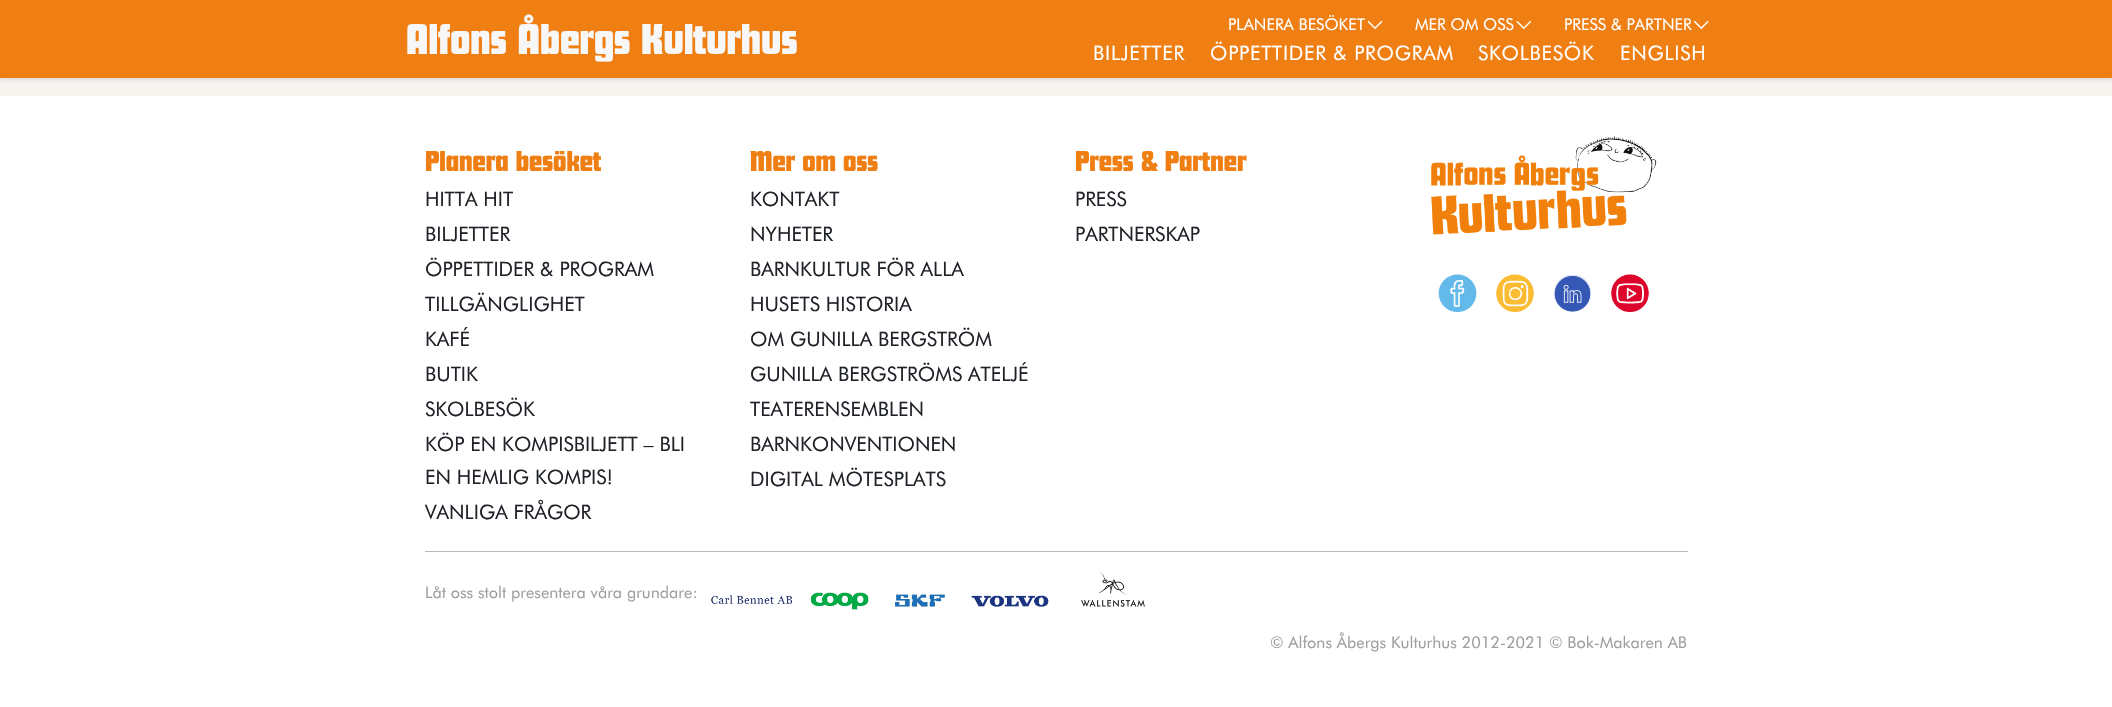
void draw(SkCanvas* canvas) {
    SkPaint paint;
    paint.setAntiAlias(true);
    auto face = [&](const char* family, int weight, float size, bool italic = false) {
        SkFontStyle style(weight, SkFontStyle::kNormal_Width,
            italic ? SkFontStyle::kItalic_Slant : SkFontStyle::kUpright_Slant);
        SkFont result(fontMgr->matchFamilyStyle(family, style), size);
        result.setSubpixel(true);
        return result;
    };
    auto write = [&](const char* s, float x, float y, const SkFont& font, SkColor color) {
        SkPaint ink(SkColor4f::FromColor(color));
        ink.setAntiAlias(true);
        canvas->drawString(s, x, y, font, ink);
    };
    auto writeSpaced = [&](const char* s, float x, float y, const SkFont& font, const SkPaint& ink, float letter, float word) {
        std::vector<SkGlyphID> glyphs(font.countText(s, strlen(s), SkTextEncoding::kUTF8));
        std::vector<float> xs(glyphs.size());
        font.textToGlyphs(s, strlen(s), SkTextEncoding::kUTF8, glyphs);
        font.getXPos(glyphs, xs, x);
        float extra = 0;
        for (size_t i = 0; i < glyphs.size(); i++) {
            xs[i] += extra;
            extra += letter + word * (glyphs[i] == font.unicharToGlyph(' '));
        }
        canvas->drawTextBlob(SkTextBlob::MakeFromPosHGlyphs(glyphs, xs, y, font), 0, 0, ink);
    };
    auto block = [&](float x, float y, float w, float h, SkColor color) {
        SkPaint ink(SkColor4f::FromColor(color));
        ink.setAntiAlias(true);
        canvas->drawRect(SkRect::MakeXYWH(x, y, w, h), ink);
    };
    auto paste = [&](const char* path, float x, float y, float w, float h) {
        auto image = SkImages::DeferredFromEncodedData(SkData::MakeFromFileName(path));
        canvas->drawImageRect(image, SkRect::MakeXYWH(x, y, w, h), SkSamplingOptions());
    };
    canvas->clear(SkColorSetRGB(246, 244, 239));
    paint.setColor(SkColorSetARGB(36, 0, 0, 0));
    paint.setMaskFilter(SkMaskFilter::MakeBlur(kNormal_SkBlurStyle, 2));
    canvas->drawRect(SkRect::MakeXYWH(0, 1, 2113, 78), paint);
    paint.setMaskFilter(nullptr);
    block(0, 0, 2112, 78, SkColorSetRGB(240, 127, 19));
    auto kFont1 = face("Futura", 400, 45);
    write("Alfons Åbergs Kulturhus", 406, 54, kFont1, SkColorSetRGB(247, 247, 247));
    auto kFont2 = face("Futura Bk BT", 400, 16.25f);
    write("PLANERA BESÖKET", 1228, 30, kFont2, SK_ColorWHITE);
    paste("pic1.png", 1368, 20, 15, 10);
    write("MER OM OSS", 1415, 30, kFont2, SK_ColorWHITE);
    paste("pic2.png", 1516, 20, 15, 10);
    write("PRESS & PARTNER", 1564, 30, kFont2, SK_ColorWHITE);
    paste("pic3.png", 1694, 20, 15, 10);
    auto kFont3 = face("Futura Bk BT", 400, 20);
    paint.setColor(SK_ColorWHITE);
    writeSpaced("BILJETTER", 1093, 60, kFont3, paint, 0.75f, 0);
    writeSpaced("ÖPPETTIDER & PROGRAM", 1210, 60, kFont3, paint, 0.75f, 0);
    writeSpaced("SKOLBESÖK", 1478, 60, kFont3, paint, 0.75f, 0);
    writeSpaced("ENGLISH", 1620, 60, kFont3, paint, 0.75f, 0);
    block(0, 96, 2112, 611, SK_ColorWHITE);
    auto kFont4 = face("Futura", 400, 30);
    write("Planera besöket", 425, 171, kFont4, SkColorSetRGB(240, 127, 19));
    write("HITTA HIT", 425, 206, kFont3, SkColorSetRGB(31, 34, 40));
    write("BILJETTER", 425, 241, kFont3, SkColorSetRGB(31, 34, 40));
    write("ÖPPETTIDER & PROGRAM", 425, 276, kFont3, SkColorSetRGB(31, 34, 40));
    write("TILLGÄNGLIGHET", 425, 311, kFont3, SkColorSetRGB(31, 34, 40));
    write("KAFÉ", 425, 346, kFont3, SkColorSetRGB(31, 34, 40));
    write("BUTIK", 425, 381, kFont3, SkColorSetRGB(31, 34, 40));
    write("SKOLBESÖK", 425, 416, kFont3, SkColorSetRGB(31, 34, 40));
    write("KÖP EN KOMPISBILJETT – BLI", 425, 451, kFont3, SkColorSetRGB(31, 34, 40));
    write("EN HEMLIG KOMPIS!", 425, 484, kFont3, SkColorSetRGB(31, 34, 40));
    write("VANLIGA FRÅGOR", 425, 519, kFont3, SkColorSetRGB(31, 34, 40));
    write("Mer om oss", 750, 171, kFont4, SkColorSetRGB(240, 127, 19));
    write("KONTAKT", 750, 206, kFont3, SkColorSetRGB(31, 34, 40));
    write("NYHETER", 750, 241, kFont3, SkColorSetRGB(31, 34, 40));
    write("BARNKULTUR FÖR ALLA", 750, 276, kFont3, SkColorSetRGB(31, 34, 40));
    write("HUSETS HISTORIA", 750, 311, kFont3, SkColorSetRGB(31, 34, 40));
    write("OM GUNILLA BERGSTRÖM", 750, 346, kFont3, SkColorSetRGB(31, 34, 40));
    write("GUNILLA BERGSTRÖMS ATELJÉ", 750, 381, kFont3, SkColorSetRGB(31, 34, 40));
    write("TEATERENSEMBLEN", 750, 416, kFont3, SkColorSetRGB(31, 34, 40));
    write("BARNKONVENTIONEN", 750, 451, kFont3, SkColorSetRGB(31, 34, 40));
    write("DIGITAL MÖTESPLATS", 750, 486, kFont3, SkColorSetRGB(31, 34, 40));
    write("Press & Partner", 1075, 171, kFont4, SkColorSetRGB(240, 127, 19));
    write("PRESS", 1075, 206, kFont3, SkColorSetRGB(31, 34, 40));
    write("PARTNERSKAP", 1075, 241, kFont3, SkColorSetRGB(31, 34, 40));
    paste("pic4.png", 1431, 135, 226, 100);
    paste("pic5.png", 1438, 274, 39, 38);
    paste("pic6.png", 1496, 274, 38, 38);
    paste("pic7.png", 1554, 275, 37, 37);
    paste("pic8.png", 1611, 274, 38, 38);
    block(425, 551, 1263, 1, SkColorSetRGB(185, 185, 185));
    write("Låt oss stolt presentera våra grundare:", 425, 598, kFont2, SkColorSetRGB(158, 158, 158));
    paste("pic9.png", 711, 572, 434, 38);
    write("© Alfons Åbergs Kulturhus 2012-2021 © Bok-Makaren AB", 1270, 648, kFont2, SkColorSetRGB(158, 158, 158));
}
